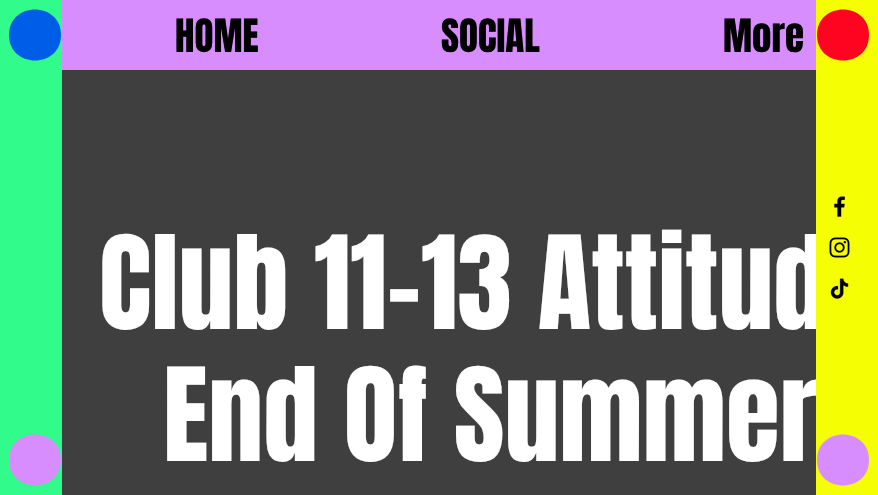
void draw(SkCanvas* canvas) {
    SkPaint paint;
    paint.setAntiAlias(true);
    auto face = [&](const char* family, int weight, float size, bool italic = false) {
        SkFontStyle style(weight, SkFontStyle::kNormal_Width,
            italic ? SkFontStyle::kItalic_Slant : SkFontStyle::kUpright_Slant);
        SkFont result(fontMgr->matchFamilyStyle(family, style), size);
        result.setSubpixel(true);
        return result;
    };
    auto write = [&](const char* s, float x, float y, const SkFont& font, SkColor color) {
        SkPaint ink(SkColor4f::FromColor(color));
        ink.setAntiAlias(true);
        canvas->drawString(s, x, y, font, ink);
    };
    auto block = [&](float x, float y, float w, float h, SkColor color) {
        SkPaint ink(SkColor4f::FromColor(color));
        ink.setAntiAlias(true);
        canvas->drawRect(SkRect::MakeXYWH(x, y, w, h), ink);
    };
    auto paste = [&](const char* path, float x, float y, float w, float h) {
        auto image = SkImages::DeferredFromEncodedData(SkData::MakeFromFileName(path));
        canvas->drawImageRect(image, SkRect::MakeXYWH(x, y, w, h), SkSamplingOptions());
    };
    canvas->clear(SkColorSetRGB(64, 63, 63));
    block(0, 0, 62, 495, SkColorSetRGB(48, 251, 139));
    auto kFont1 = face("Anton", 400, 110);
    write("Club 11-13 Attitud", 99, 329, kFont1, SK_ColorWHITE);
    write("End Of Summer", 163, 461, kFont1, SK_ColorWHITE);
    block(816, 0, 62, 495, SkColorSetRGB(245, 254, 3));
    paste("pic1.png", 834, 196, 11, 21);
    paste("pic2.png", 829, 237, 21, 21);
    paste("pic3.png", 830, 278, 19, 21);
    paint.setColor(SkColorSetRGB(0, 93, 231));
    canvas->drawPath(SkPathBuilder().moveTo(61, 35).cubicTo(61, 69, 9, 69, 9, 35).cubicTo(9, 1, 61, 1, 61, 35).close().detach(), paint);
    block(62, 0, 754, 70, SkColorSetRGB(216, 141, 255));
    auto kFont2 = face("Anton", 400, 39);
    write("HOME", 175, 52, kFont2, SK_ColorBLACK);
    write("SOCIAL", 441, 52, kFont2, SK_ColorBLACK);
    write("More", 723, 52, kFont2, SK_ColorBLACK);
    paint.setColor(SkColorSetRGB(255, 4, 32));
    canvas->drawPath(SkPathBuilder().moveTo(869, 35).cubicTo(869, 69, 817, 69, 817, 35).cubicTo(817, 1, 869, 1, 869, 35).close().detach(), paint);
    paint.setColor(SkColorSetRGB(216, 141, 255));
    canvas->drawPath(SkPathBuilder().moveTo(61, 460).cubicTo(61, 494, 9, 494, 9, 460).cubicTo(9, 426, 61, 426, 61, 460).close().detach(), paint);
    canvas->drawPath(SkPathBuilder().moveTo(869, 460).cubicTo(869, 494, 817, 494, 817, 460).cubicTo(817, 426, 869, 426, 869, 460).close().detach(), paint);
}
